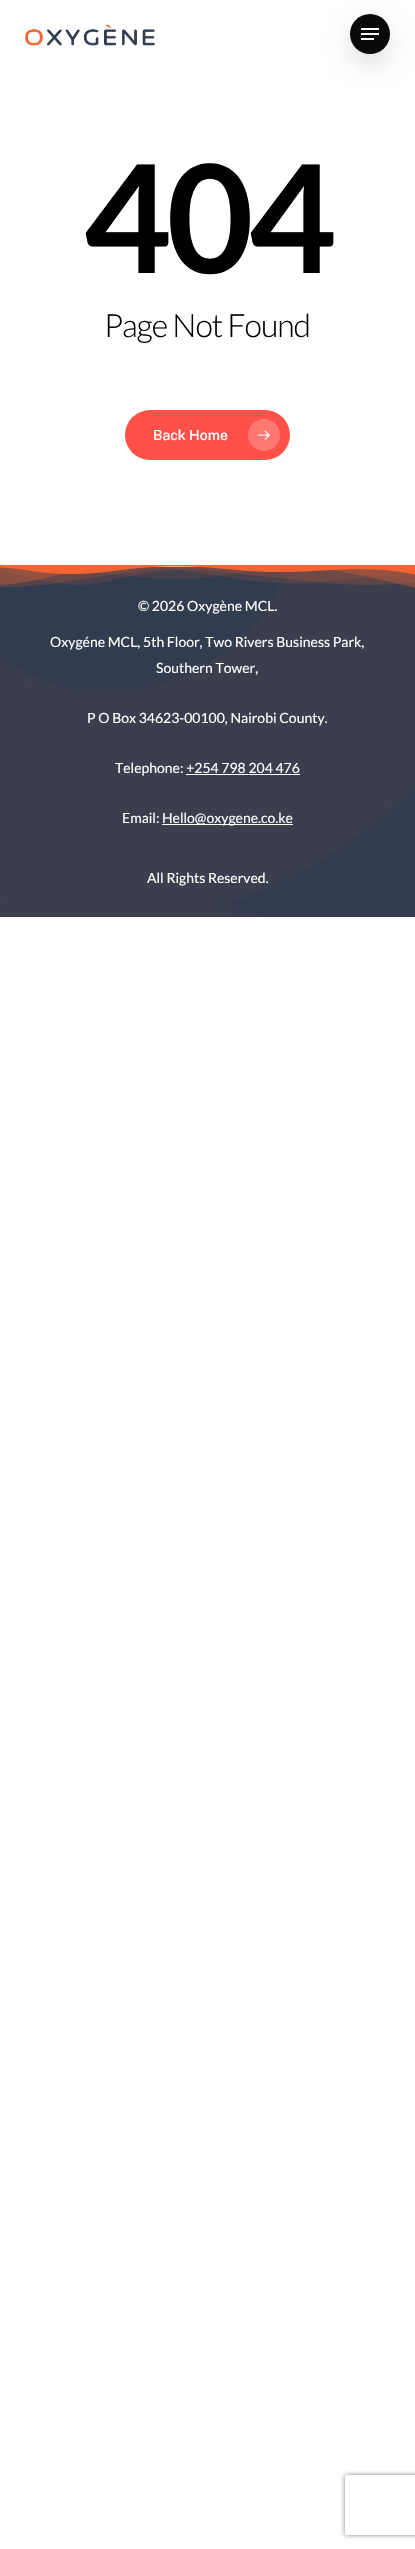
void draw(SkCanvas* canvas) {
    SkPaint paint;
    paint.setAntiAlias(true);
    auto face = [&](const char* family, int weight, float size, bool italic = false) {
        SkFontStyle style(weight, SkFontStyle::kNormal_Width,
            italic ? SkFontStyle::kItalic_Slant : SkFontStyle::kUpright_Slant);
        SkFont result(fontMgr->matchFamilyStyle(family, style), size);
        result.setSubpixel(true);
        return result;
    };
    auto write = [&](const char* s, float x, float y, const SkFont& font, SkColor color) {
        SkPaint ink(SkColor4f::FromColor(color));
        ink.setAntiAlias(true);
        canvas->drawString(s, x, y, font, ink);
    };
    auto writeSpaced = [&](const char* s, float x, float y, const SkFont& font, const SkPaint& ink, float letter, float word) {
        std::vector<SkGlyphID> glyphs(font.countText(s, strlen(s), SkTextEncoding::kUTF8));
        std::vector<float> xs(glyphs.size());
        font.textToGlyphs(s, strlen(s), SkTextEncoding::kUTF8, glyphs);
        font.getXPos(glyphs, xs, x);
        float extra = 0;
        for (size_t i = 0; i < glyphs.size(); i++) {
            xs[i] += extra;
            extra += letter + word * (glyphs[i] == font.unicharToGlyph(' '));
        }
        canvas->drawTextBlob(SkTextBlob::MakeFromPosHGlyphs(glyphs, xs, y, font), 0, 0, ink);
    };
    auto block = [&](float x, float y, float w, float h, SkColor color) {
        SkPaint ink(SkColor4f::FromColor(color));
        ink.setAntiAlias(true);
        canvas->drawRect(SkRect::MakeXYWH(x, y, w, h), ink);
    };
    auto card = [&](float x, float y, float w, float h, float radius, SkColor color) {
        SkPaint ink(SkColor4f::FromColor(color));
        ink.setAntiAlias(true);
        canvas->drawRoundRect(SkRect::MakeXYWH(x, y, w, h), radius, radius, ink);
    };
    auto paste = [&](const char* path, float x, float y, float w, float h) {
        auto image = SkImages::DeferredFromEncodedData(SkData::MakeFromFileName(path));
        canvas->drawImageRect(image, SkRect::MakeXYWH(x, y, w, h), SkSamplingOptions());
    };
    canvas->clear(SK_ColorWHITE);
    paste("pic1.png", 25, 24, 130, 22);
    paint.setColor(SkColorSetARGB(33, 0, 0, 0));
    paint.setMaskFilter(SkMaskFilter::MakeBlur(kNormal_SkBlurStyle, 12.5f));
    canvas->drawRoundRect(SkRect::MakeXYWH(350, 24, 40, 40), 20, 20, paint);
    paint.setMaskFilter(nullptr);
    paint.setColor(SkColorSetRGB(10, 10, 10));
    canvas->drawCircle(370, 34, 20, paint);
    block(361, 28, 18, 2, SK_ColorWHITE);
    block(361, 38, 13, 2, SK_ColorWHITE);
    block(361, 33, 18, 2, SK_ColorWHITE);
    auto kFont1 = face("Lato", 700, 150);
    paint.setColor(SK_ColorBLACK);
    writeSpaced("404", 84, 273, kFont1, paint, -4.5f, 0);
    auto kFont2 = face("Lato", 300, 32);
    writeSpaced("Page Not Found", 104, 337, kFont2, paint, -1, 0);
    card(125, 410, 165, 50, 25, SkColorSetRGB(255, 81, 73));
    auto kFont3 = face("Public Sans", 500, 14);
    write("Back Home", 153, 440, kFont3, SK_ColorWHITE);
    paint.setColor(SkColorSetRGB(255, 119, 113));
    canvas->drawCircle(264, 435, 16, paint);
    paste("pic2.png", 258, 430, 12, 10);
    block(0, 567, 415, 350, SkColorSetRGB(50, 60, 79));
    paste("pic4.png", 0, 569, 415, 348);
    paste("pic3.png", 0, 565, 415, 23);
    auto kFont4 = face("Lato", 400, 14);
    write("© 2026 Oxygène MCL.", 138, 611, kFont4, SK_ColorWHITE);
    write("Oxygéne MCL, 5th Floor, Two Rivers Business Park,", 50, 647, kFont4, SK_ColorWHITE);
    write("Southern Tower,", 156, 673, kFont4, SK_ColorWHITE);
    write("P O Box 34623-00100, Nairobi County.", 87, 723, kFont4, SK_ColorWHITE);
    write("Telephone: +254 798 204 476", 115, 773, kFont4, SK_ColorWHITE);
    block(186, 774, 114, 1, SK_ColorWHITE);
    write("Email:", 122, 823, kFont4, SK_ColorWHITE);
    block(162, 824, 131, 1, SK_ColorWHITE);
    write("Hello@oxygene.co.ke", 162, 823, kFont4, SK_ColorWHITE);
    write("All Rights Reserved.", 147, 883, kFont4, SK_ColorWHITE);
    canvas->save();
    canvas->clipPath(SkPathBuilder(SkPathFillType::kEvenOdd).moveTo(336, 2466).lineTo(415, 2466).lineTo(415, 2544).lineTo(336, 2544).close().moveTo(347, 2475).lineTo(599, 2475).cubicTo(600, 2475, 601, 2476, 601, 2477).lineTo(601, 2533).cubicTo(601, 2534, 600, 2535, 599, 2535).lineTo(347, 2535).cubicTo(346, 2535, 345, 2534, 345, 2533).lineTo(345, 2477).cubicTo(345, 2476, 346, 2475, 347, 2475).close().detach(), true);
    paint.setColor(SkColorSetRGB(128, 128, 128));
    paint.setMaskFilter(SkMaskFilter::MakeBlur(kNormal_SkBlurStyle, 2.5f));
    canvas->drawRoundRect(SkRect::MakeXYWH(345, 2475, 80, 60), 2, 2, paint);
    paint.setMaskFilter(nullptr);
    canvas->restore();
}
